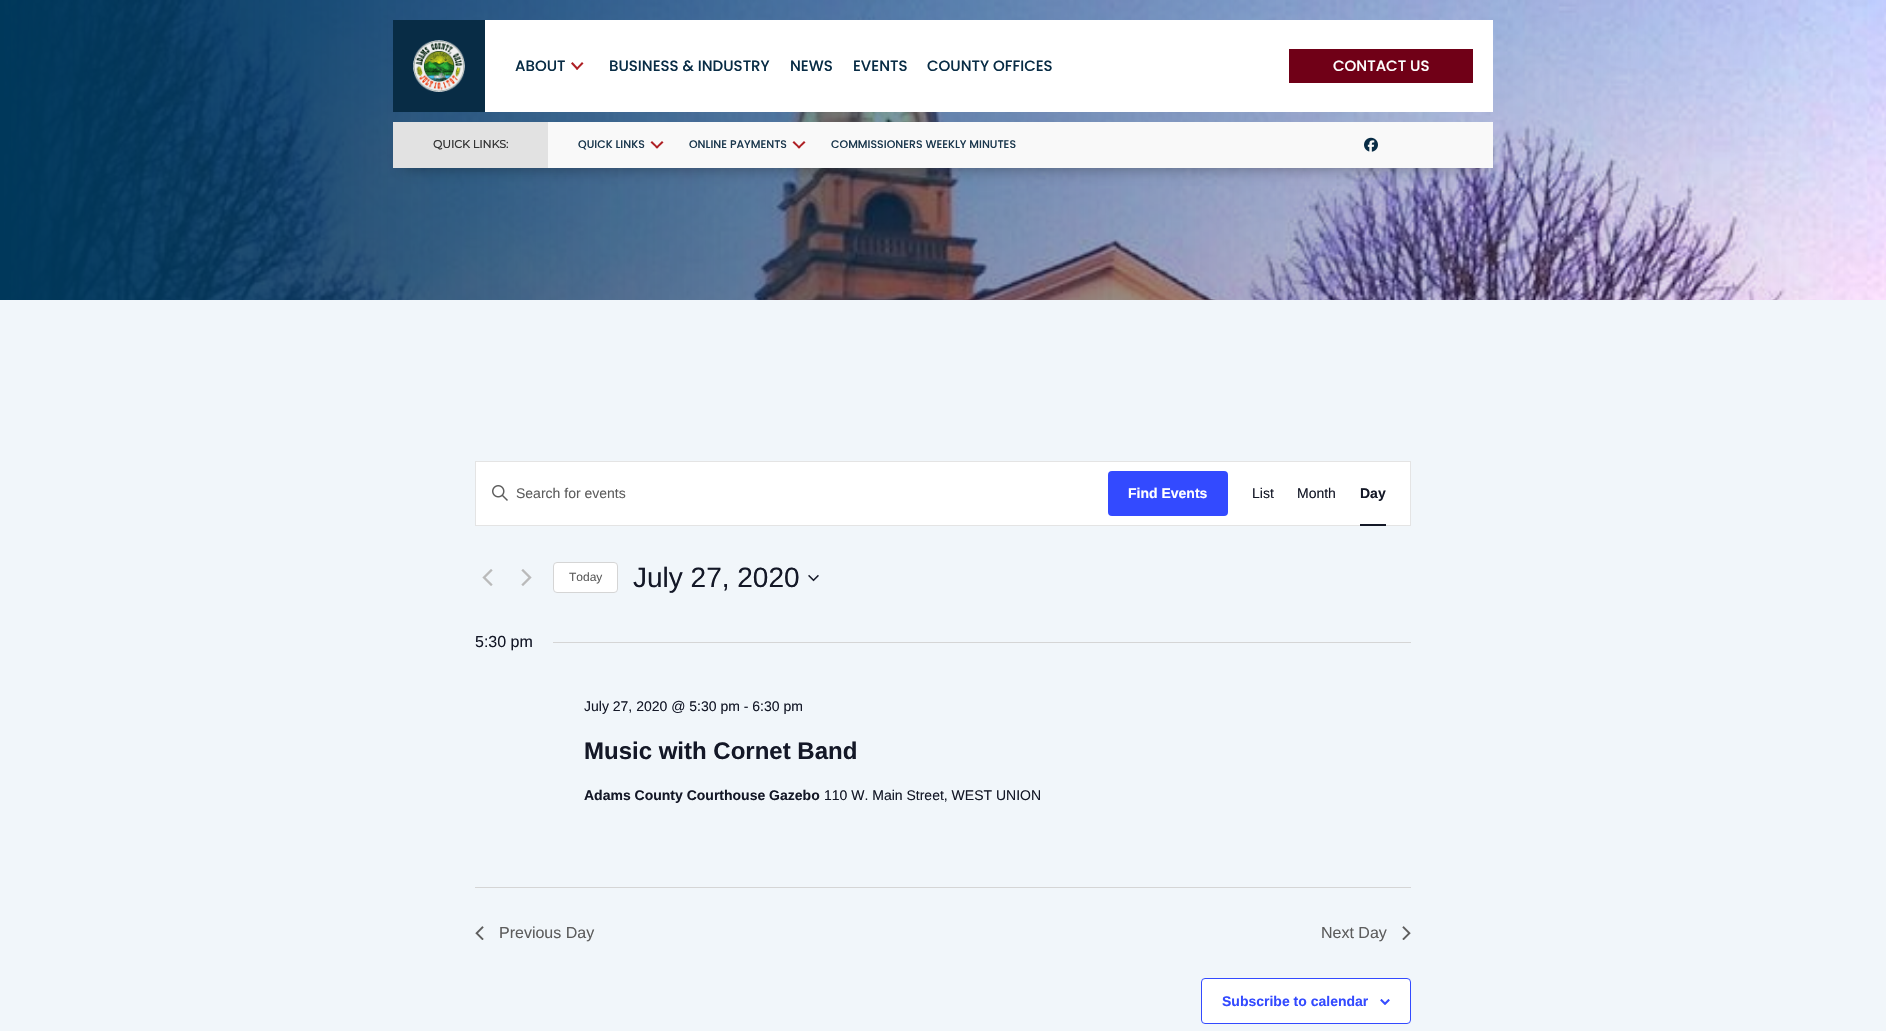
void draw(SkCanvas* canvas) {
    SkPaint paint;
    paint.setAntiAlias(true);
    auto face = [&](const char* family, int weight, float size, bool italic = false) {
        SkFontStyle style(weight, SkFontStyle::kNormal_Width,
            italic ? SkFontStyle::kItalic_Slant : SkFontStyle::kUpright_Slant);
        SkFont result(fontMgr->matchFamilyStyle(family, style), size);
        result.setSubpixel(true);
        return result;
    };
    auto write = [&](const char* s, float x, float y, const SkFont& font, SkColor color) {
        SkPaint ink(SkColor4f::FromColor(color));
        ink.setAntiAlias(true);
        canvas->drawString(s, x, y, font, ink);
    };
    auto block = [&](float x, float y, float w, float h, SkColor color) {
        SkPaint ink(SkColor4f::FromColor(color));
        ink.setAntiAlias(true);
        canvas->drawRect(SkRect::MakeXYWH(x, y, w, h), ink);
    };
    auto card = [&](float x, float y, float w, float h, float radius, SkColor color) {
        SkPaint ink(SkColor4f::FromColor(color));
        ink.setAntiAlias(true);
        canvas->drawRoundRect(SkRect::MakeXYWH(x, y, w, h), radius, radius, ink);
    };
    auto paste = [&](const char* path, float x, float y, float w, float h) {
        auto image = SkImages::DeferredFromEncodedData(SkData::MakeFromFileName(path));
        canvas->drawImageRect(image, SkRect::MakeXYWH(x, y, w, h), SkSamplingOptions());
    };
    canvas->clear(SkColorSetRGB(241, 246, 250));
    paste("pic1.png", 0, 0, 1886, 300);
    block(393, 20, 92, 92, SkColorSetRGB(8, 44, 69));
    paste("pic2.png", 413, 40, 52, 52);
    block(485, 20, 1008, 92, SK_ColorWHITE);
    auto kFont1 = face("Poppins", 500, 15);
    write("ABOUT", 515, 71, kFont1, SkColorSetRGB(8, 44, 69));
    paint.setColor(SkColorSetRGB(174, 31, 36));
    canvas->drawPath(SkPathBuilder().moveTo(582, 62).lineTo(583.5f, 63.5f).lineTo(577, 70).lineTo(576, 68.5f).close().detach(), paint);
    canvas->drawPath(SkPathBuilder().moveTo(572.5f, 62).lineTo(578.5f, 68.5f).lineTo(577, 70).lineTo(571, 63.5f).close().detach(), paint);
    write("BUSINESS & INDUSTRY", 609, 71, kFont1, SkColorSetRGB(8, 44, 69));
    write("NEWS", 790, 71, kFont1, SkColorSetRGB(8, 44, 69));
    write("EVENTS", 853, 71, kFont1, SkColorSetRGB(8, 44, 69));
    write("COUNTY OFFICES", 927, 71, kFont1, SkColorSetRGB(8, 44, 69));
    block(1289, 49, 184, 34, SkColorSetRGB(112, 0, 23));
    write("CONTACT US", 1333, 71, kFont1, SK_ColorWHITE);
    paint.setColor(SkColorSetARGB(89, 0, 0, 0));
    paint.setMaskFilter(SkMaskFilter::MakeBlur(kNormal_SkBlurStyle, 7.5f));
    canvas->drawRect(SkRect::MakeXYWH(403, 142, 1080, 26), paint);
    paint.setMaskFilter(nullptr);
    block(393, 122, 155, 46, SkColorSetRGB(226, 226, 226));
    auto kFont2 = face("Montserrat", 700, 11);
    write("QUICK LINKS:", 433, 148, kFont2, SkColorSetRGB(51, 51, 51));
    block(548, 122, 945, 46, SkColorSetRGB(249, 249, 249));
    auto kFont3 = face("Poppins", 500, 11);
    write("QUICK LINKS", 578, 148, kFont3, SkColorSetRGB(26, 55, 77));
    paint.setColor(SkColorSetRGB(174, 31, 36));
    canvas->drawPath(SkPathBuilder().moveTo(662, 141).lineTo(663.5f, 142.5f).lineTo(657, 148.5f).lineTo(655.5f, 147.5f).close().detach(), paint);
    canvas->drawPath(SkPathBuilder().moveTo(652, 141).lineTo(658.5f, 147.5f).lineTo(657, 148.5f).lineTo(650.5f, 142.5f).close().detach(), paint);
    write("ONLINE PAYMENTS", 689, 148, kFont3, SkColorSetRGB(26, 55, 77));
    canvas->drawPath(SkPathBuilder().moveTo(804, 141).lineTo(805.5f, 142.5f).lineTo(799, 148.5f).lineTo(797.5f, 147.5f).close().detach(), paint);
    canvas->drawPath(SkPathBuilder().moveTo(794, 141).lineTo(800.5f, 147.5f).lineTo(799, 148.5f).lineTo(792.5f, 142.5f).close().detach(), paint);
    write("COMMISSIONERS WEEKLY MINUTES", 831, 148, kFont3, SkColorSetRGB(26, 55, 77));
    paste("pic3.png", 1364, 137, 14, 15);
    paint.setColor(SK_ColorWHITE);
    canvas->drawRect(SkRect::MakeXYWH(475.5f, 461.5f, 935, 64), paint);
    paint.setStyle(SkPaint::kStroke_Style);
    paint.setStrokeWidth(1);
    paint.setColor(SkColorSetRGB(228, 228, 228));
    canvas->drawRect(SkRect::MakeXYWH(475.5f, 461.5f, 935, 64), paint);
    paste("pic4.png", 492, 485, 16, 16);
    auto kFont4 = face("Liberation Sans", 400, 14);
    write("Search for events", 516, 498, kFont4, SkColorSetRGB(93, 93, 93));
    card(1108, 471, 120, 45, 4, SkColorSetRGB(51, 74, 255));
    auto kFont5 = face("Liberation Sans", 700, 14);
    write("Find Events", 1128, 498, kFont5, SK_ColorWHITE);
    write("List", 1252, 498, kFont4, SkColorSetRGB(20, 24, 39));
    write("Month", 1297, 498, kFont4, SkColorSetRGB(20, 24, 39));
    write("Day", 1360, 498, kFont5, SkColorSetRGB(20, 24, 39));
    block(1360, 524, 26, 2, SkColorSetRGB(20, 24, 39));
    paste("pic5.png", 482, 569, 11, 17);
    paste("pic6.png", 521, 569, 11, 17);
    paint.setStyle(SkPaint::kFill_Style);
    paint.setColor(SK_ColorWHITE);
    canvas->drawRoundRect(SkRect::MakeXYWH(553.5f, 562.5f, 64, 30), 3.5f, 3.5f, paint);
    paint.setStyle(SkPaint::kStroke_Style);
    paint.setColor(SkColorSetRGB(213, 213, 213));
    canvas->drawRoundRect(SkRect::MakeXYWH(553.5f, 562.5f, 64, 30), 3.5f, 3.5f, paint);
    auto kFont6 = face("Liberation Sans", 400, 12);
    write("Today", 569, 581, kFont6, SkColorSetRGB(93, 93, 93));
    auto kFont7 = face("Liberation Sans", 400, 28);
    write("July 27, 2020", 633, 587, kFont7, SkColorSetRGB(20, 24, 39));
    paste("pic7.png", 808, 574, 11, 8);
    auto kFont8 = face("Liberation Sans", 400, 16);
    write("5:30 pm", 475, 647, kFont8, SkColorSetRGB(20, 24, 39));
    block(553, 642, 858, 1, SkColorSetRGB(213, 213, 213));
    write("July 27, 2020 @ 5:30 pm - 6:30 pm", 584, 711, kFont4, SkColorSetRGB(20, 24, 39));
    auto kFont9 = face("Liberation Sans", 700, 24);
    write("Music with Cornet Band", 584, 759, kFont9, SkColorSetRGB(20, 24, 39));
    write("Adams County Courthouse Gazebo", 584, 800, kFont5, SkColorSetRGB(20, 24, 39));
    write("110 W. Main Street, WEST UNION", 824, 800, kFont4, SkColorSetRGB(20, 24, 39));
    block(475, 887, 936, 1, SkColorSetRGB(213, 213, 213));
    paste("pic8.png", 475, 926, 9, 14);
    write("Previous Day", 499, 938, kFont8, SkColorSetRGB(93, 93, 93));
    write("Next Day", 1321, 938, kFont8, SkColorSetRGB(93, 93, 93));
    paste("pic9.png", 1402, 926, 9, 14);
    paint.setStyle(SkPaint::kFill_Style);
    paint.setColor(SK_ColorWHITE);
    canvas->drawRoundRect(SkRect::MakeXYWH(1201.5f, 978.5f, 209, 45), 3.5f, 3.5f, paint);
    paint.setStyle(SkPaint::kStroke_Style);
    paint.setColor(SkColorSetRGB(51, 74, 255));
    canvas->drawRoundRect(SkRect::MakeXYWH(1201.5f, 978.5f, 209, 45), 3.5f, 3.5f, paint);
    write("Subscribe to calendar", 1222, 1006, kFont5, SkColorSetRGB(51, 74, 255));
    paste("pic10.png", 1380, 999, 10, 6);
}
